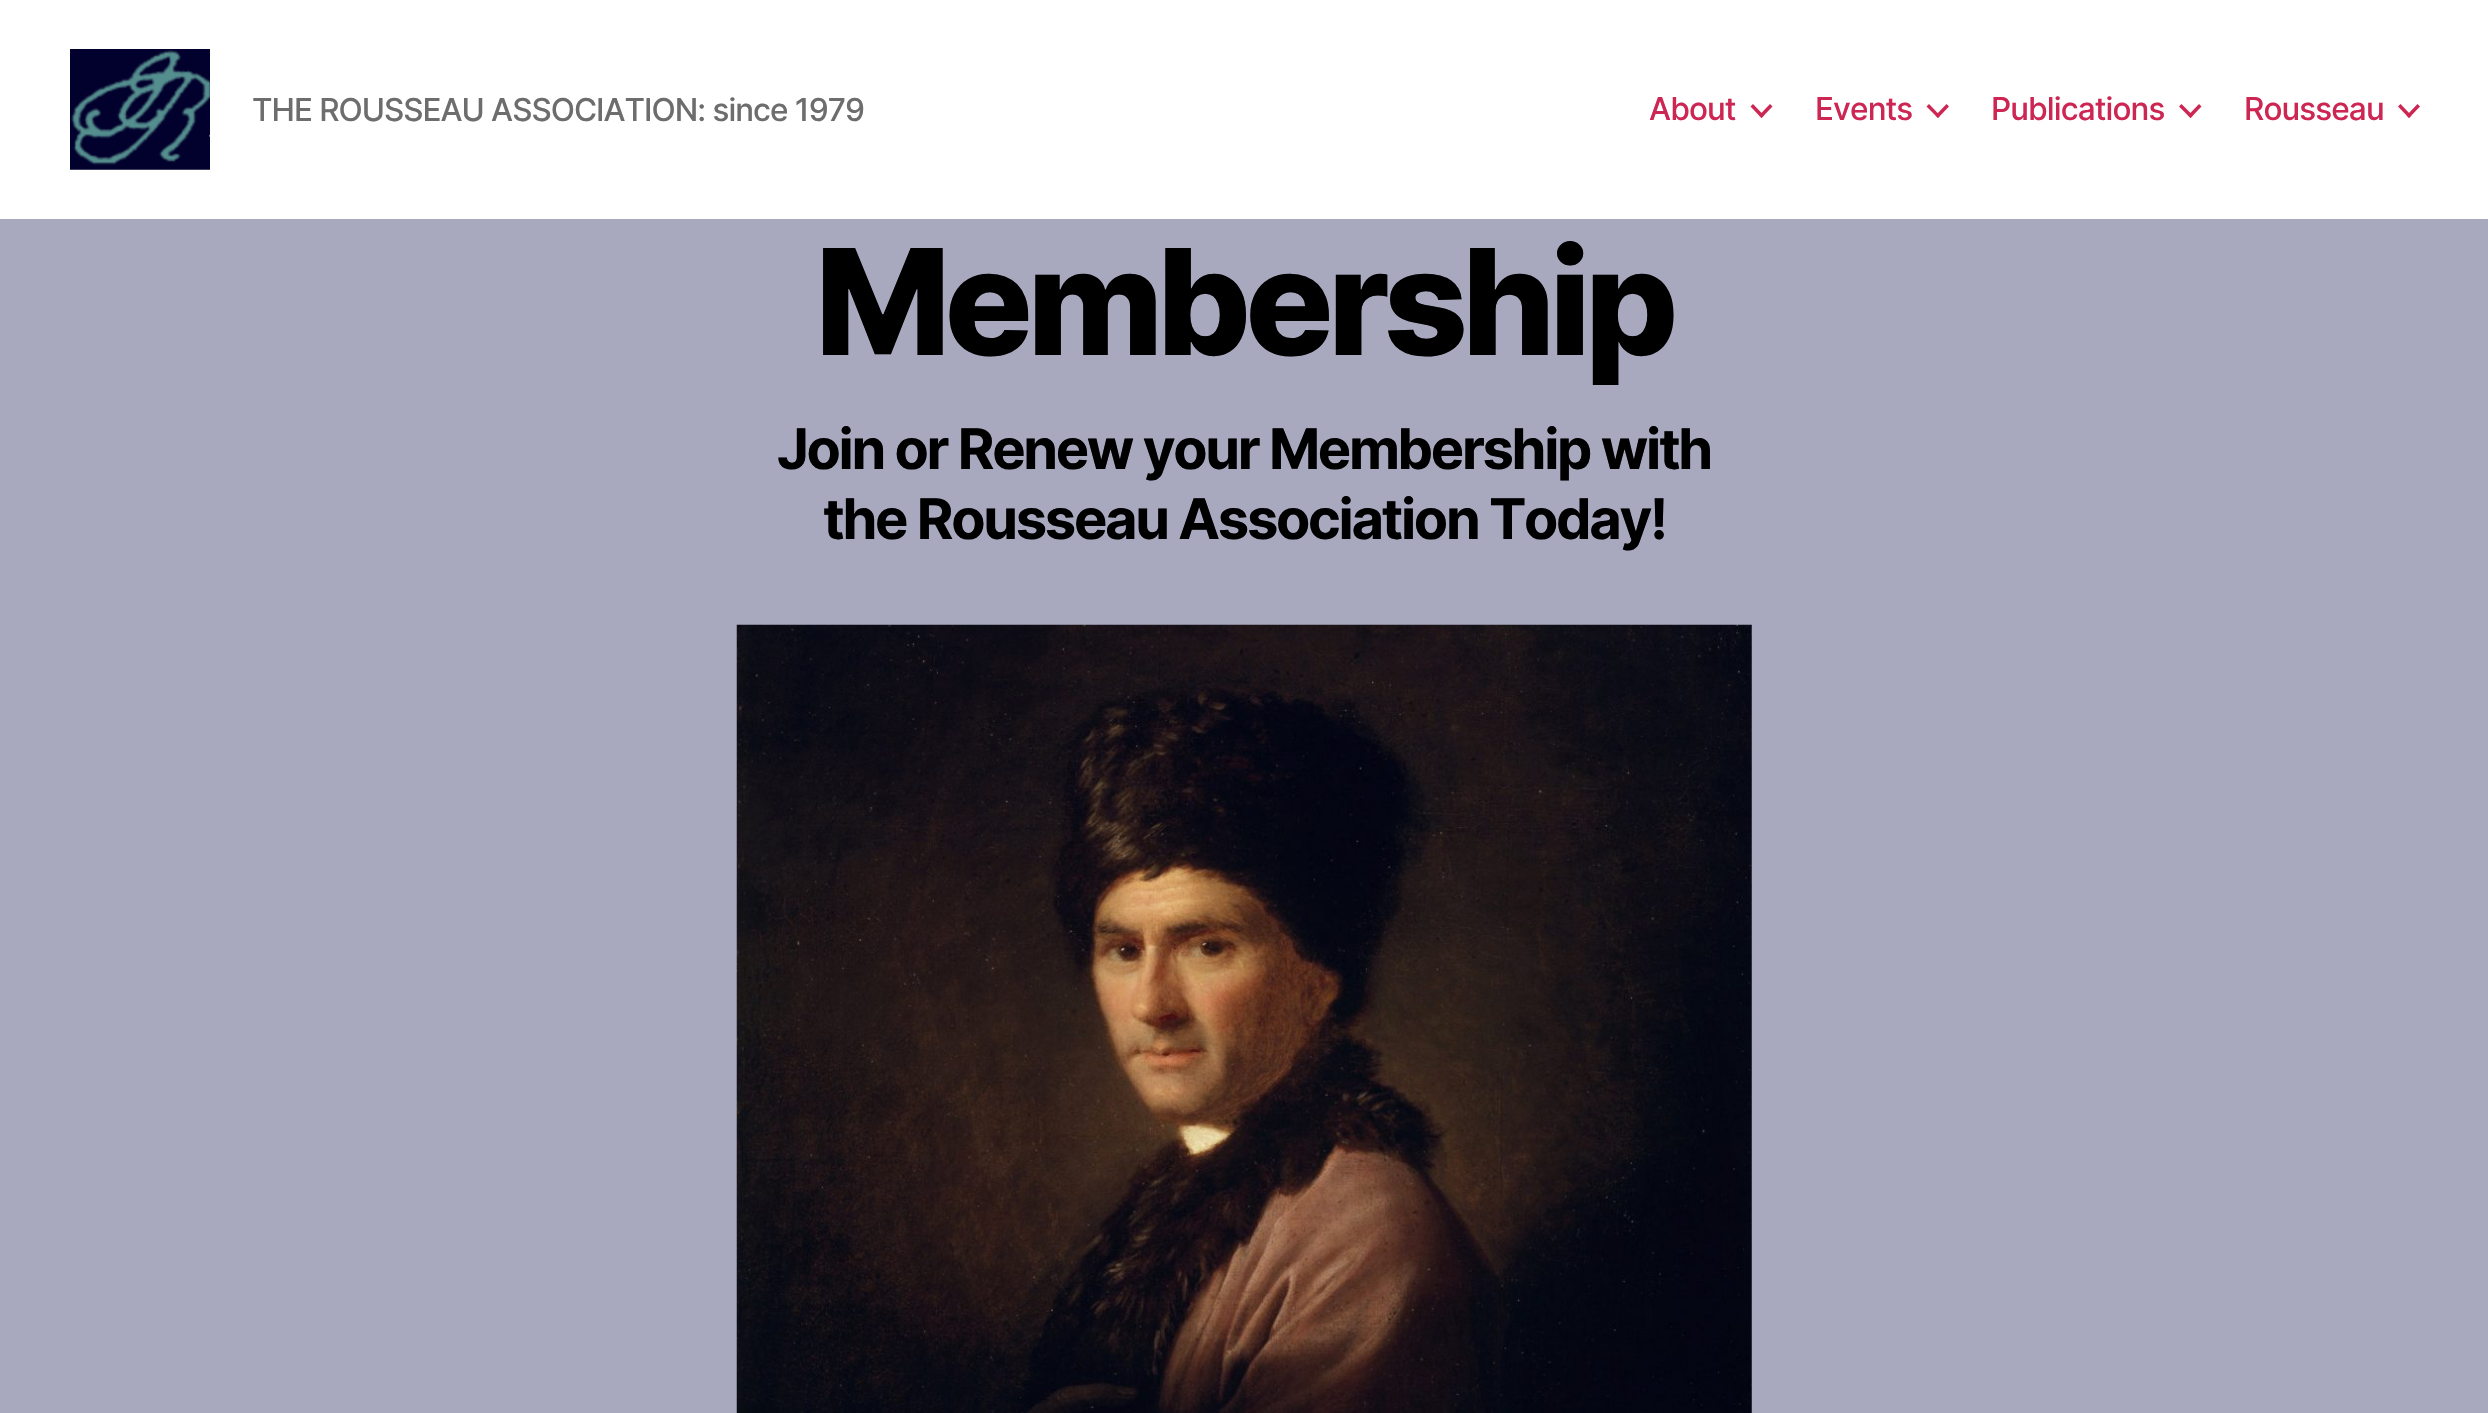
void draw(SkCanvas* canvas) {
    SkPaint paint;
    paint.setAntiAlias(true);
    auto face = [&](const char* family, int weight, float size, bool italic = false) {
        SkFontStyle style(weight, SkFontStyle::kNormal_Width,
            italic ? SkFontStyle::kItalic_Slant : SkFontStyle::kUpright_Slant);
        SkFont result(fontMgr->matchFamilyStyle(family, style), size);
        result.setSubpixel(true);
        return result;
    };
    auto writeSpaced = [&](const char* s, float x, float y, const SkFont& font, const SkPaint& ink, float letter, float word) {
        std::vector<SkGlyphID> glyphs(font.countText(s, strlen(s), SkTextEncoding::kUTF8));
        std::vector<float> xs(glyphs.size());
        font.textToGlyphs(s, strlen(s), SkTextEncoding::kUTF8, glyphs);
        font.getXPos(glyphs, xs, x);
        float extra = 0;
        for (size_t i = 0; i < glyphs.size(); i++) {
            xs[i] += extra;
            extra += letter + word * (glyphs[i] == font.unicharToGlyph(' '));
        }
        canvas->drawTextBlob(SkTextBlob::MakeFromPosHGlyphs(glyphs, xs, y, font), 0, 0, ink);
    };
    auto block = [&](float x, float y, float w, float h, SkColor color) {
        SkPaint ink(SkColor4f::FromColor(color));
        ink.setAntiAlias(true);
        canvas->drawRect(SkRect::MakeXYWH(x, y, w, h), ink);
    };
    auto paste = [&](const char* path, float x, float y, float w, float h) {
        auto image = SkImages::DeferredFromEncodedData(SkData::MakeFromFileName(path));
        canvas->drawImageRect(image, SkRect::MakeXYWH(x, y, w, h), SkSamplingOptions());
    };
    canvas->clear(SkColorSetRGB(168, 168, 191));
    block(0, 0, 2488, 219, SK_ColorWHITE);
    paste("pic1.png", 70, 49, 140, 121);
    auto kFont1 = face("Inter", 500, 31.5f);
    paint.setColor(SkColorSetRGB(109, 109, 109));
    writeSpaced("THE ROUSSEAU ASSOCIATION: since 1979", 252, 121, kFont1, paint, -1, 0);
    paint.setColor(SkColorSetRGB(205, 38, 83));
    writeSpaced("About", 1649, 120, kFont1, paint, -0.9f, 0);
    canvas->drawPath(SkPathBuilder().moveTo(1750.5f, 106.5f).lineTo(1753, 104).lineTo(1764, 115.5f).lineTo(1761.5f, 118).close().detach(), paint);
    canvas->drawPath(SkPathBuilder().moveTo(1759, 115.5f).lineTo(1770, 104).lineTo(1772.5f, 106.5f).lineTo(1761.5f, 118).close().detach(), paint);
    writeSpaced("Events", 1815, 120, kFont1, paint, -0.9f, 0);
    canvas->drawPath(SkPathBuilder().moveTo(1926.5f, 106.5f).lineTo(1929, 104).lineTo(1940, 115.5f).lineTo(1938, 118).close().detach(), paint);
    canvas->drawPath(SkPathBuilder().moveTo(1935.5f, 115.5f).lineTo(1946.5f, 104).lineTo(1949, 106.5f).lineTo(1938, 118).close().detach(), paint);
    writeSpaced("Publications", 1991, 120, kFont1, paint, -0.9f, 0);
    canvas->drawPath(SkPathBuilder().moveTo(2179, 106.5f).lineTo(2181.5f, 104).lineTo(2193, 115.5f).lineTo(2190.5f, 118).close().detach(), paint);
    canvas->drawPath(SkPathBuilder().moveTo(2188, 115.5f).lineTo(2199, 104).lineTo(2201.5f, 106.5f).lineTo(2190.5f, 118).close().detach(), paint);
    writeSpaced("Rousseau", 2244, 120, kFont1, paint, -0.9f, 0);
    canvas->drawPath(SkPathBuilder().moveTo(2398, 106.5f).lineTo(2400.5f, 104).lineTo(2411.5f, 115.5f).lineTo(2409, 118).close().detach(), paint);
    canvas->drawPath(SkPathBuilder().moveTo(2406.5f, 115.5f).lineTo(2417.5f, 104).lineTo(2420, 106.5f).lineTo(2409, 118).close().detach(), paint);
    auto kFont2 = face("Inter", 800, 147);
    paint.setColor(SK_ColorBLACK);
    writeSpaced("Membership", 815, 355, kFont2, paint, -6.1f, 0);
    auto kFont3 = face("Inter", 700, 56);
    writeSpaced("Join or Renew your Membership with", 777, 469, kFont3, paint, -2.35f, 0);
    writeSpaced("the Rousseau Association Today!", 823, 539, kFont3, paint, -2.35f, 0);
    paste("pic2.png", 736, 624, 1016, 789);
}
